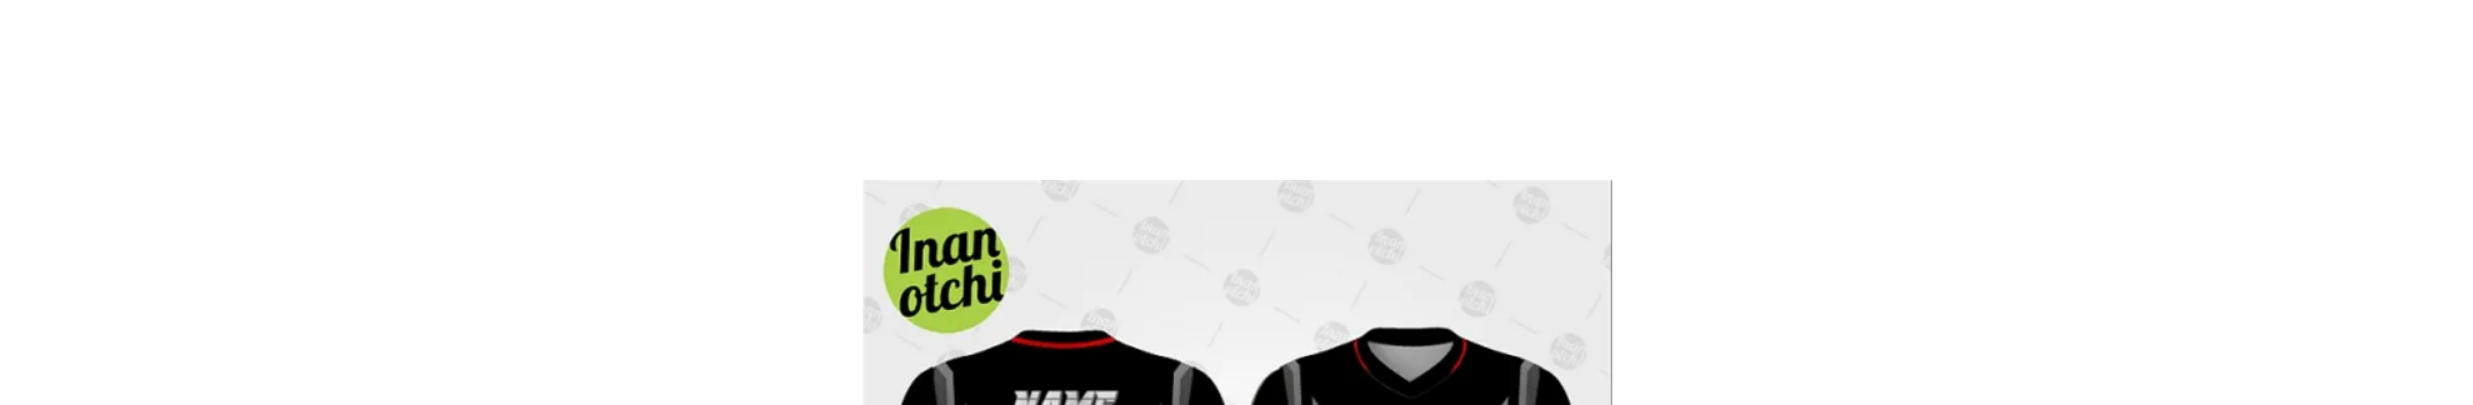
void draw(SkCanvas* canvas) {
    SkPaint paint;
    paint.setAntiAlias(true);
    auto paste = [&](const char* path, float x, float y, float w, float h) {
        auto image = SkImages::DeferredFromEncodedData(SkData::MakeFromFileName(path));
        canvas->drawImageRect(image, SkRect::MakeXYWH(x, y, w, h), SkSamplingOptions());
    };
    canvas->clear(SK_ColorWHITE);
    paste("pic1.png", 862, 180, 751, 225);
}
